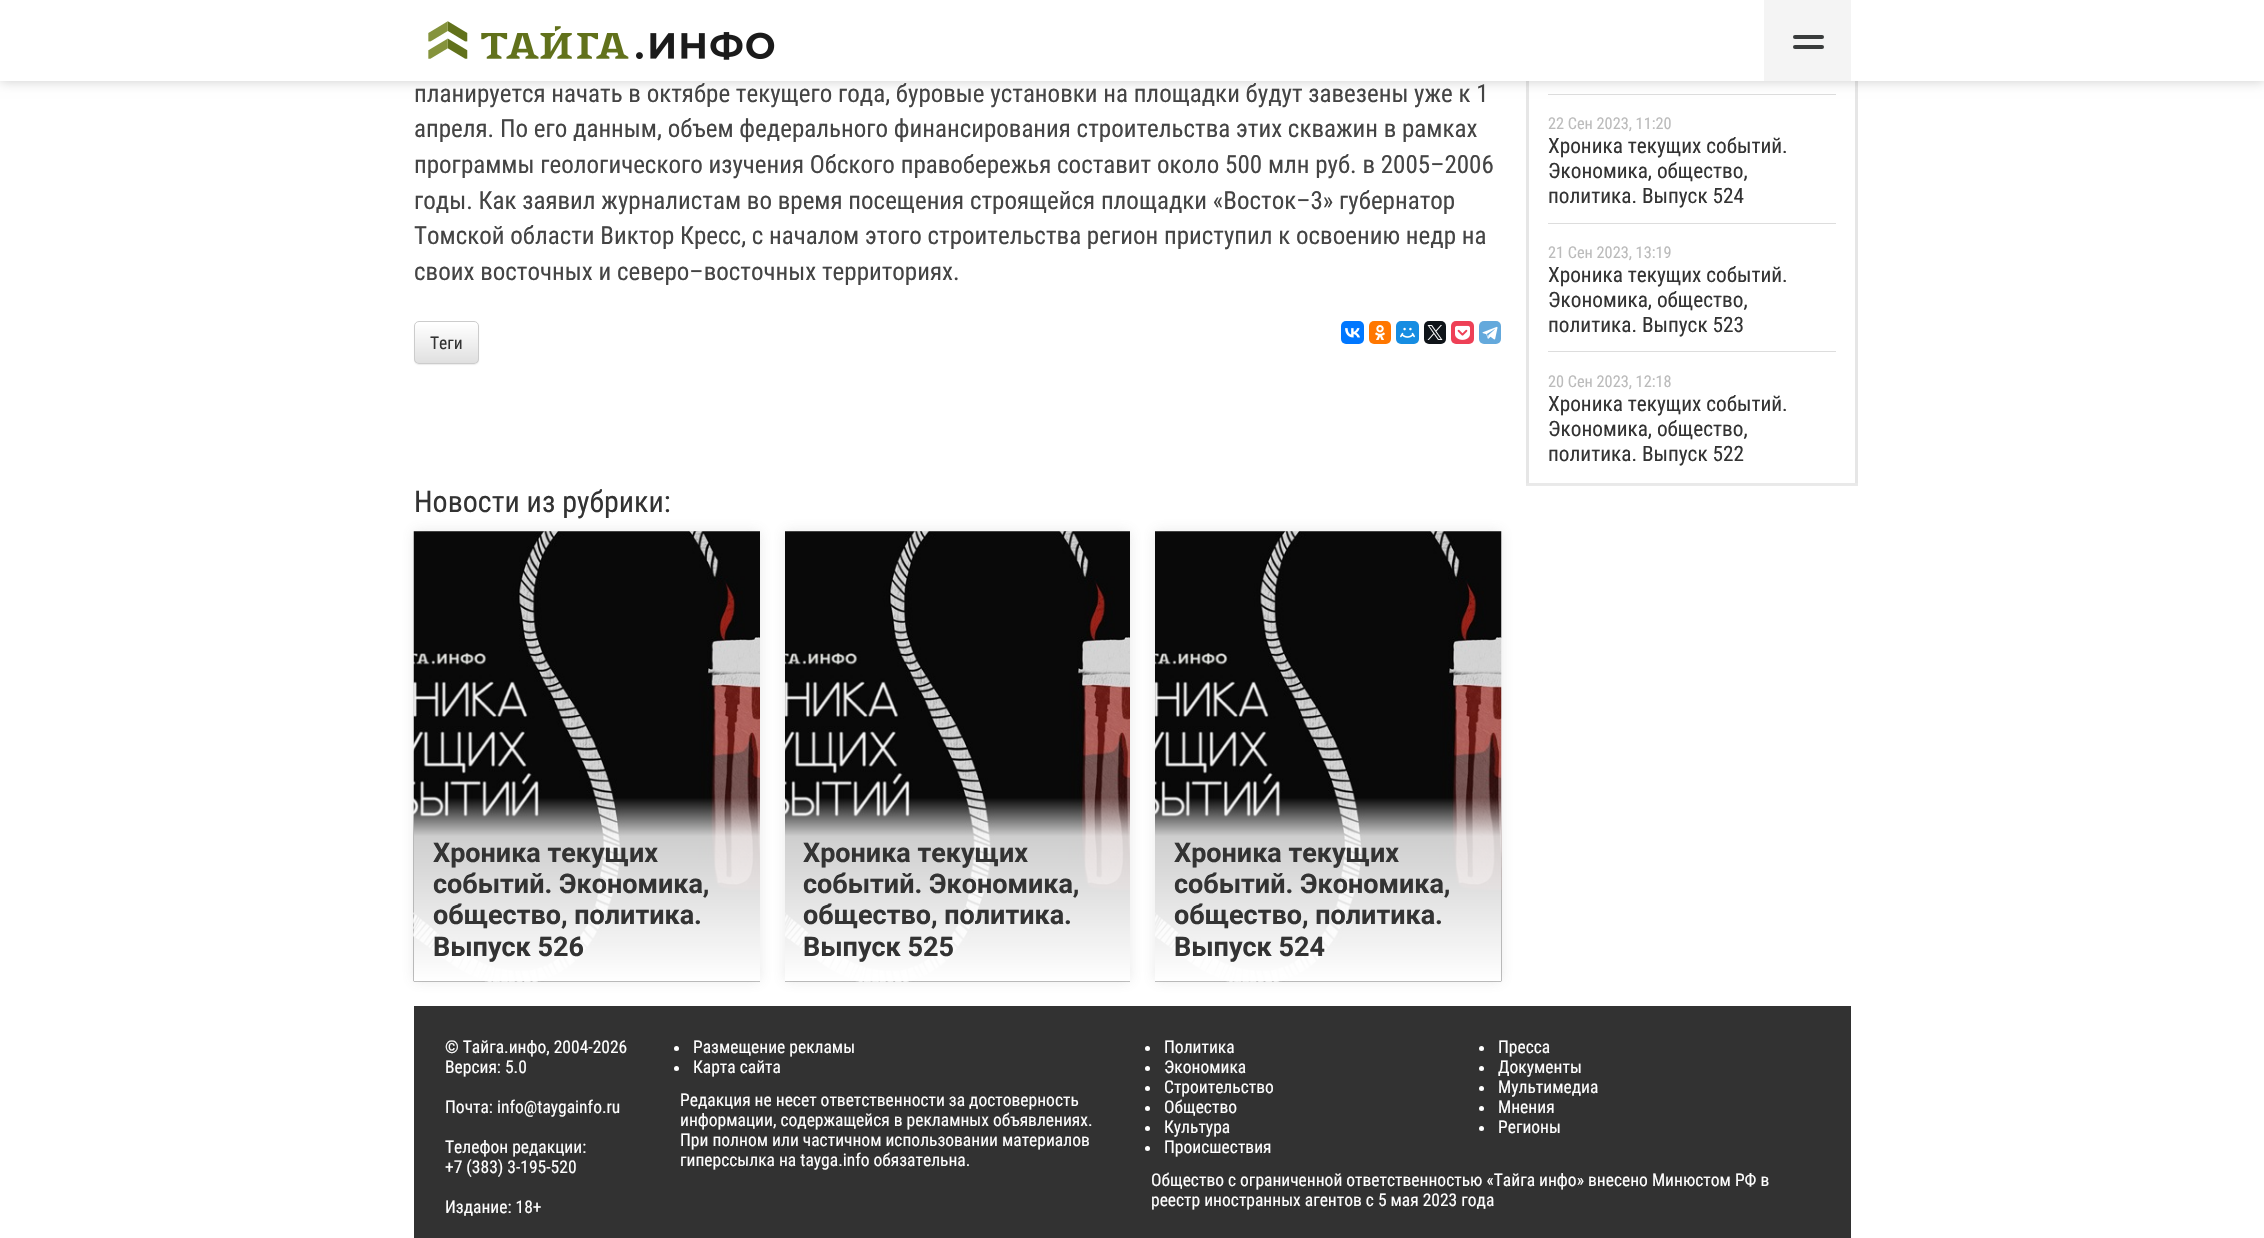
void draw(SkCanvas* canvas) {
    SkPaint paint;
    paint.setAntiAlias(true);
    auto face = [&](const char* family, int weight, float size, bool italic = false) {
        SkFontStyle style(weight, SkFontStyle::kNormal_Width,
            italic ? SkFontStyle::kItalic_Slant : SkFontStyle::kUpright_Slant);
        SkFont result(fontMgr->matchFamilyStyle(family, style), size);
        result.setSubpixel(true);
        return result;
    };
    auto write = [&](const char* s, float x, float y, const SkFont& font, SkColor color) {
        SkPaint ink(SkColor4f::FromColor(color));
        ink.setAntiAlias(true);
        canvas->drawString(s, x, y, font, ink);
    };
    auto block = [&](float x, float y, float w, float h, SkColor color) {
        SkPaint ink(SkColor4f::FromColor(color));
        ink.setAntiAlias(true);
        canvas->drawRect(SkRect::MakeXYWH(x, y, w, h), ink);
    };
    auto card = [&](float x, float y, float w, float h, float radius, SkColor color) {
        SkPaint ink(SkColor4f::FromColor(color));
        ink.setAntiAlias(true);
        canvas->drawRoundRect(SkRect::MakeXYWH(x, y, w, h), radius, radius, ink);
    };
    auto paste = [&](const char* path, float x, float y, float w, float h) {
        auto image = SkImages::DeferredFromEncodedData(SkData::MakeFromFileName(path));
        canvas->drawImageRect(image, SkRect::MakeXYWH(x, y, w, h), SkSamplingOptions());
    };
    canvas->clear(SK_ColorWHITE);
    paint.setStyle(SkPaint::kStroke_Style);
    paint.setStrokeWidth(3);
    paint.setColor(SkColorSetRGB(230, 230, 230));
    canvas->drawRect(SkRect::MakeXYWH(1527.5f, -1.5f, 329, 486), paint);
    block(1548, 94, 288, 1, SkColorSetRGB(221, 221, 221));
    paint.setStyle(SkPaint::kFill_Style);
    paint.setColor(SkColorSetARGB(51, 0, 0, 0));
    paint.setMaskFilter(SkMaskFilter::MakeBlur(kNormal_SkBlurStyle, 6));
    canvas->drawRect(SkRect::MakeXYWH(0, 0, 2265, 81), paint);
    paint.setMaskFilter(nullptr);
    block(0, 0, 2264, 81, SK_ColorWHITE);
    paste("pic1.png", 428, 21, 347, 39);
    block(1764, 0, 87, 81, SkColorSetRGB(244, 244, 244));
    card(1793, 35, 31, 4, 2, SkColorSetRGB(57, 60, 60));
    card(1793, 45, 31, 4, 2, SkColorSetRGB(57, 60, 60));
    auto kFont1 = face("Roboto Condensed", 400, 25);
    write("планируется начать в октябре текущего года, буровые установки на площадки будут завезены уже к 1", 414, 102, kFont1, SkColorSetRGB(68, 68, 68));
    write("апреля. По его данным, объем федерального финансирования строительства этих скважин в рамках", 414, 137, kFont1, SkColorSetRGB(68, 68, 68));
    write("программы геологического изучения Обского правобережья составит около 500 млн руб. в 2005–2006", 414, 173, kFont1, SkColorSetRGB(68, 68, 68));
    write("годы. Как заявил журналистам во время посещения строящейся площадки «Восток–3» губернатор", 414, 209, kFont1, SkColorSetRGB(68, 68, 68));
    write("Томской области Виктор Кресс, с началом этого строительства регион приступил к освоению недр на", 414, 244, kFont1, SkColorSetRGB(68, 68, 68));
    write("своих восточных и северо–восточных территориях.", 414, 280, kFont1, SkColorSetRGB(68, 68, 68));
    paint.setColor(SkColorSetARGB(18, 0, 0, 0));
    paint.setMaskFilter(SkMaskFilter::MakeBlur(kNormal_SkBlurStyle, 0.5f));
    canvas->drawRoundRect(SkRect::MakeXYWH(414, 323, 65, 42), 5, 5, paint);
    paint.setMaskFilter(nullptr);
    card(414, 321, 65, 43, 5, SK_ColorWHITE);
    canvas->save();
    canvas->clipPath(SkPathBuilder().moveTo(419, 321).lineTo(474, 321).cubicTo(477, 321, 479, 323, 479, 326).lineTo(479, 359).cubicTo(479, 362, 477, 364, 474, 364).lineTo(419, 364).cubicTo(416, 364, 414, 362, 414, 359).lineTo(414, 326).cubicTo(414, 323, 416, 321, 419, 321).close().detach(), true);
    {
        const SkColor colors[] = {SK_ColorWHITE, SkColorSetRGB(224, 224, 224)};
        const float stops[] = {0, 1};
        const SkPoint ends[] = {{446, 323}, {446, 363}};
        paint.setShader(SkGradientShader::MakeLinear(ends, colors, stops, 2, SkTileMode::kClamp));
        paint.setAlpha(255);
    }
    canvas->drawRect(SkRect::MakeXYWH(414, 323, 65, 40), paint);
    canvas->restore();
    paint.setStyle(SkPaint::kStroke_Style);
    paint.setStrokeWidth(1);
    paint.setShader(nullptr);
    paint.setColor(SkColorSetRGB(204, 204, 204));
    canvas->drawRoundRect(SkRect::MakeXYWH(414.5f, 321.5f, 64, 42), 4.5f, 4.5f, paint);
    auto kFont2 = face("Roboto Condensed", 400, 17.5f);
    write("Теги", 430, 349, kFont2, SkColorSetRGB(51, 51, 51));
    card(1341, 321, 23, 23, 5, SkColorSetRGB(0, 119, 255));
    paste("pic2.png", 1345, 328, 15, 10);
    card(1369, 321, 22, 23, 5, SkColorSetRGB(255, 119, 0));
    paste("pic3.png", 1375, 325, 10, 15);
    card(1396, 321, 23, 23, 5, SkColorSetRGB(22, 141, 226));
    paste("pic4.png", 1400, 327, 15, 11);
    card(1424, 321, 22, 23, 5, SkColorSetRGB(15, 20, 25));
    paste("pic5.png", 1427, 325, 16, 15);
    card(1451, 321, 23, 23, 5, SkColorSetRGB(238, 64, 86));
    paste("pic6.png", 1455, 325, 15, 15);
    card(1479, 321, 22, 23, 5, SkColorSetRGB(100, 169, 220));
    paste("pic7.png", 1482, 326, 16, 14);
    auto kFont3 = face("Roboto Condensed", 400, 30);
    write("Новости из рубрики:", 414, 512, kFont3, SkColorSetRGB(51, 51, 51));
    paint.setStyle(SkPaint::kFill_Style);
    paint.setColor(SkColorSetARGB(38, 100, 100, 100));
    paint.setMaskFilter(SkMaskFilter::MakeBlur(kNormal_SkBlurStyle, 6));
    canvas->drawRect(SkRect::MakeXYWH(414, 531, 346, 450), paint);
    paint.setMaskFilter(nullptr);
    paste("pic8.png", 413, 531, 347, 451);
    auto kFont4 = face("Roboto", 700, 27);
    write("Хроника текущих", 433, 862, kFont4, SkColorSetRGB(51, 51, 51));
    write("событий. Экономика,", 433, 893, kFont4, SkColorSetRGB(51, 51, 51));
    write("общество, политика.", 433, 924, kFont4, SkColorSetRGB(51, 51, 51));
    write("Выпуск 526", 433, 956, kFont4, SkColorSetRGB(51, 51, 51));
    paint.setMaskFilter(SkMaskFilter::MakeBlur(kNormal_SkBlurStyle, 6));
    canvas->drawRect(SkRect::MakeXYWH(785, 531, 345, 450), paint);
    paint.setMaskFilter(nullptr);
    paste("pic9.png", 785, 531, 345, 451);
    write("Хроника текущих", 803, 862, kFont4, SkColorSetRGB(51, 51, 51));
    write("событий. Экономика,", 803, 893, kFont4, SkColorSetRGB(51, 51, 51));
    write("общество, политика.", 803, 924, kFont4, SkColorSetRGB(51, 51, 51));
    write("Выпуск 525", 803, 956, kFont4, SkColorSetRGB(51, 51, 51));
    paint.setMaskFilter(SkMaskFilter::MakeBlur(kNormal_SkBlurStyle, 6));
    canvas->drawRect(SkRect::MakeXYWH(1155, 531, 346, 450), paint);
    paint.setMaskFilter(nullptr);
    paste("pic10.png", 1155, 531, 347, 451);
    write("Хроника текущих", 1174, 862, kFont4, SkColorSetRGB(51, 51, 51));
    write("событий. Экономика,", 1174, 893, kFont4, SkColorSetRGB(51, 51, 51));
    write("общество, политика.", 1174, 924, kFont4, SkColorSetRGB(51, 51, 51));
    write("Выпуск 524", 1174, 956, kFont4, SkColorSetRGB(51, 51, 51));
    auto kFont5 = face("Roboto Condensed", 400, 16.25f);
    write("22 Сен 2023, 11:20", 1548, 129, kFont5, SkColorSetRGB(187, 187, 187));
    auto kFont6 = face("Roboto Condensed", 400, 21.25f);
    write("Хроника текущих событий.", 1548, 153, kFont6, SkColorSetRGB(51, 51, 51));
    write("Экономика, общество,", 1548, 178, kFont6, SkColorSetRGB(51, 51, 51));
    write("политика. Выпуск 524", 1548, 203, kFont6, SkColorSetRGB(51, 51, 51));
    block(1548, 223, 288, 1, SkColorSetRGB(221, 221, 221));
    write("21 Сен 2023, 13:19", 1548, 258, kFont5, SkColorSetRGB(187, 187, 187));
    write("Хроника текущих событий.", 1548, 282, kFont6, SkColorSetRGB(51, 51, 51));
    write("Экономика, общество,", 1548, 307, kFont6, SkColorSetRGB(51, 51, 51));
    write("политика. Выпуск 523", 1548, 332, kFont6, SkColorSetRGB(51, 51, 51));
    block(1548, 351, 288, 1, SkColorSetRGB(221, 221, 221));
    write("20 Сен 2023, 12:18", 1548, 387, kFont5, SkColorSetRGB(187, 187, 187));
    write("Хроника текущих событий.", 1548, 411, kFont6, SkColorSetRGB(51, 51, 51));
    write("Экономика, общество,", 1548, 436, kFont6, SkColorSetRGB(51, 51, 51));
    write("политика. Выпуск 522", 1548, 461, kFont6, SkColorSetRGB(51, 51, 51));
    {
        const SkColor colors[] = {SkColorSetARGB(0, 255, 255, 255), SK_ColorWHITE};
        const float stops[] = {0, 1};
        const SkPoint ends[] = {{1692, 480}, {1692, 511}};
        paint.setShader(SkGradientShader::MakeLinear(ends, colors, stops, 2, SkTileMode::kClamp));
        paint.setAlpha(255);
    }
    canvas->drawRect(SkRect::MakeXYWH(1526, 483, 332, 3), paint);
    block(414, 1006, 1437, 232, SkColorSetRGB(50, 50, 50));
    write("© Тайга.инфо, 2004-2026", 445, 1053, kFont2, SK_ColorWHITE);
    write("Версия: 5.0", 445, 1073, kFont2, SK_ColorWHITE);
    write("Почта: info@taygainfo.ru", 445, 1113, kFont2, SK_ColorWHITE);
    write("Телефон редакции:", 445, 1153, kFont2, SK_ColorWHITE);
    write("+7 (383) 3-195-520", 445, 1173, kFont2, SK_ColorWHITE);
    write("Издание: 18+", 445, 1213, kFont2, SK_ColorWHITE);
    paint.setShader(nullptr);
    paint.setColor(SK_ColorWHITE);
    canvas->drawCircle(676.5f, 1048.5f, 2.5f, paint);
    write("Размещение рекламы", 693, 1053, kFont2, SK_ColorWHITE);
    canvas->drawCircle(676.5f, 1068.5f, 2.5f, paint);
    write("Карта сайта", 693, 1073, kFont2, SK_ColorWHITE);
    write("Редакция не несет ответственности за достоверность", 680, 1106, kFont2, SK_ColorWHITE);
    write("информации, содержащейся в рекламных объявлениях.", 680, 1126, kFont2, SK_ColorWHITE);
    write("При полном или частичном использовании материалов", 680, 1146, kFont2, SK_ColorWHITE);
    write("гиперссылка на tayga.info обязательна.", 680, 1166, kFont2, SK_ColorWHITE);
    canvas->drawCircle(1147.5f, 1048.5f, 2.5f, paint);
    write("Политика", 1164, 1053, kFont2, SK_ColorWHITE);
    canvas->drawCircle(1147.5f, 1068.5f, 2.5f, paint);
    write("Экономика", 1164, 1073, kFont2, SK_ColorWHITE);
    canvas->drawCircle(1147.5f, 1088.5f, 2.5f, paint);
    write("Строительство", 1164, 1093, kFont2, SK_ColorWHITE);
    canvas->drawCircle(1147.5f, 1108.5f, 2.5f, paint);
    write("Общество", 1164, 1113, kFont2, SK_ColorWHITE);
    canvas->drawCircle(1147.5f, 1128.5f, 2.5f, paint);
    write("Культура", 1164, 1133, kFont2, SK_ColorWHITE);
    canvas->drawCircle(1147.5f, 1148.5f, 2.5f, paint);
    write("Происшествия", 1164, 1153, kFont2, SK_ColorWHITE);
    canvas->drawCircle(1481.5f, 1048.5f, 2.5f, paint);
    write("Пресса", 1498, 1053, kFont2, SK_ColorWHITE);
    canvas->drawCircle(1481.5f, 1068.5f, 2.5f, paint);
    write("Документы", 1498, 1073, kFont2, SK_ColorWHITE);
    canvas->drawCircle(1481.5f, 1088.5f, 2.5f, paint);
    write("Мультимедиа", 1498, 1093, kFont2, SK_ColorWHITE);
    canvas->drawCircle(1481.5f, 1108.5f, 2.5f, paint);
    write("Мнения", 1498, 1113, kFont2, SK_ColorWHITE);
    canvas->drawCircle(1481.5f, 1128.5f, 2.5f, paint);
    write("Регионы", 1498, 1133, kFont2, SK_ColorWHITE);
    write("Общество с ограниченной ответственностью «Тайга инфо» внесено Минюстом РФ в", 1151, 1186, kFont2, SK_ColorWHITE);
    write("реестр иностранных агентов с 5 мая 2023 года", 1151, 1206, kFont2, SK_ColorWHITE);
}
